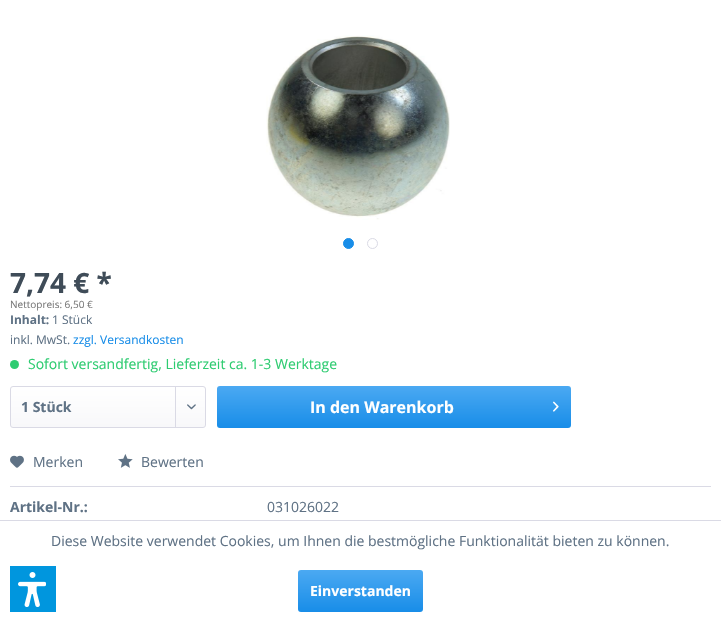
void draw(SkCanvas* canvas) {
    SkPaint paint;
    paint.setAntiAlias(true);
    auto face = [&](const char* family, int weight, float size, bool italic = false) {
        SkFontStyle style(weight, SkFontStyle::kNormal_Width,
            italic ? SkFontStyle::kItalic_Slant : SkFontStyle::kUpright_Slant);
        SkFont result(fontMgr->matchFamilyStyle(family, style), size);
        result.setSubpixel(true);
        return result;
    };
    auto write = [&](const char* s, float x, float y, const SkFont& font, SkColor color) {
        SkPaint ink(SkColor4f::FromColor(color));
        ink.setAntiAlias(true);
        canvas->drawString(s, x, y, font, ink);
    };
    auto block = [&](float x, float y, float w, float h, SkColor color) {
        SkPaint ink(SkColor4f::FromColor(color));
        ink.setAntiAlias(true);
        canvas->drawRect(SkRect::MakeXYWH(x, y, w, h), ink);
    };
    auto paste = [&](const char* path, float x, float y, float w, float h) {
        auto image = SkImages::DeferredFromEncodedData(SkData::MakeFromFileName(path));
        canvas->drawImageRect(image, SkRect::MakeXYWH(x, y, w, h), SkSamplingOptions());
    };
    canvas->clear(SK_ColorWHITE);
    paste("pic1.png", 266, 35, 184, 185);
    paint.setColor(SkColorSetRGB(24, 141, 232));
    canvas->drawCircle(348.5f, 243.5f, 5, paint);
    paint.setStyle(SkPaint::kStroke_Style);
    paint.setStrokeWidth(1);
    canvas->drawCircle(348.5f, 243.5f, 5, paint);
    paint.setColor(SkColorSetRGB(218, 218, 229));
    canvas->drawCircle(372.5f, 243.5f, 5, paint);
    auto kFont1 = face("Open Sans", 700, 28);
    write("7,74 € *", 10, 293, kFont1, SkColorSetRGB(63, 76, 88));
    auto kFont2 = face("Open Sans", 400, 10);
    write("Nettopreis: 6,50 €", 10, 308, kFont2, SkColorSetRGB(119, 119, 119));
    auto kFont3 = face("Open Sans", 700, 12);
    write("Inhalt:", 10, 324, kFont3, SkColorSetRGB(95, 114, 133));
    auto kFont4 = face("Open Sans", 400, 12);
    write("1 Stück", 52, 324, kFont4, SkColorSetRGB(95, 114, 133));
    write("inkl. MwSt.", 10, 344, kFont4, SkColorSetRGB(95, 114, 133));
    write("zzgl. Versandkosten", 73, 344, kFont4, SkColorSetRGB(24, 141, 232));
    paint.setStyle(SkPaint::kFill_Style);
    paint.setColor(SkColorSetRGB(46, 204, 113));
    canvas->drawCircle(14.5f, 364.5f, 4.5f, paint);
    auto kFont5 = face("Open Sans", 400, 14);
    write("Sofort versandfertig, Lieferzeit ca. 1-3 Werktage", 28, 369, kFont5, SkColorSetRGB(46, 204, 113));
    {
        const SkColor colors[] = {SK_ColorWHITE, SkColorSetRGB(248, 248, 250)};
        const float stops[] = {0, 1};
        const SkPoint ends[] = {{108, 387}, {108, 427}};
        paint.setShader(SkGradientShader::MakeLinear(ends, colors, stops, 2, SkTileMode::kClamp));
        paint.setAlpha(255);
    }
    canvas->drawRoundRect(SkRect::MakeXYWH(11, 387, 194, 40), 2, 2, paint);
    paint.setStyle(SkPaint::kStroke_Style);
    paint.setShader(nullptr);
    paint.setColor(SkColorSetRGB(218, 218, 229));
    canvas->drawRoundRect(SkRect::MakeXYWH(10.5f, 386.5f, 195, 41), 2.5f, 2.5f, paint);
    auto kFont6 = face("Open Sans", 700, 14);
    write("1 Stück", 21, 412, kFont6, SkColorSetRGB(95, 114, 133));
    block(175, 387, 1, 40, SkColorSetRGB(218, 218, 229));
    paste("pic2.png", 187, 404, 9, 6);
    paint.setStyle(SkPaint::kFill_Style);
    {
        const SkColor colors[] = {SkColorSetRGB(75, 169, 242), SkColorSetRGB(24, 141, 232)};
        const float stops[] = {0, 1};
        const SkPoint ends[] = {{394, 386}, {394, 428}};
        paint.setShader(SkGradientShader::MakeLinear(ends, colors, stops, 2, SkTileMode::kClamp));
        paint.setAlpha(255);
    }
    canvas->drawRoundRect(SkRect::MakeXYWH(217, 386, 354, 42), 3, 3, paint);
    auto kFont7 = face("Open Sans", 700, 16);
    write("In den Warenkorb", 310, 413, kFont7, SK_ColorWHITE);
    paste("pic3.png", 553, 401, 6, 11);
    block(10, 486, 701, 1, SkColorSetRGB(218, 218, 229));
    paste("pic4.png", 10, 455, 14, 13);
    write("Merken", 33, 467, kFont5, SkColorSetRGB(95, 114, 133));
    paste("pic5.png", 118, 454, 15, 14);
    write("Bewerten", 141, 467, kFont5, SkColorSetRGB(95, 114, 133));
    write("Artikel-Nr.:", 10, 512, kFont6, SkColorSetRGB(95, 114, 133));
    write("031026022", 267, 512, kFont5, SkColorSetRGB(95, 114, 133));
    block(10, 566, 46, 46, SkColorSetRGB(0, 150, 222));
    paste("pic6.png", 18, 572, 28, 35);
    block(0, 520, 721, 1, SkColorSetRGB(218, 218, 229));
    write("Diese Website verwendet Cookies, um Ihnen die bestmögliche Funktionalität bieten zu können.", 51, 546, kFont5, SkColorSetRGB(95, 114, 133));
    {
        const SkColor colors[] = {SkColorSetRGB(75, 169, 242), SkColorSetRGB(24, 141, 232)};
        const float stops[] = {0, 1};
        const SkPoint ends[] = {{361, 570}, {361, 612}};
        paint.setShader(SkGradientShader::MakeLinear(ends, colors, stops, 2, SkTileMode::kClamp));
        paint.setAlpha(255);
    }
    canvas->drawRoundRect(SkRect::MakeXYWH(298, 570, 125, 42), 3, 3, paint);
    write("Einverstanden", 310, 596, kFont6, SK_ColorWHITE);
}
